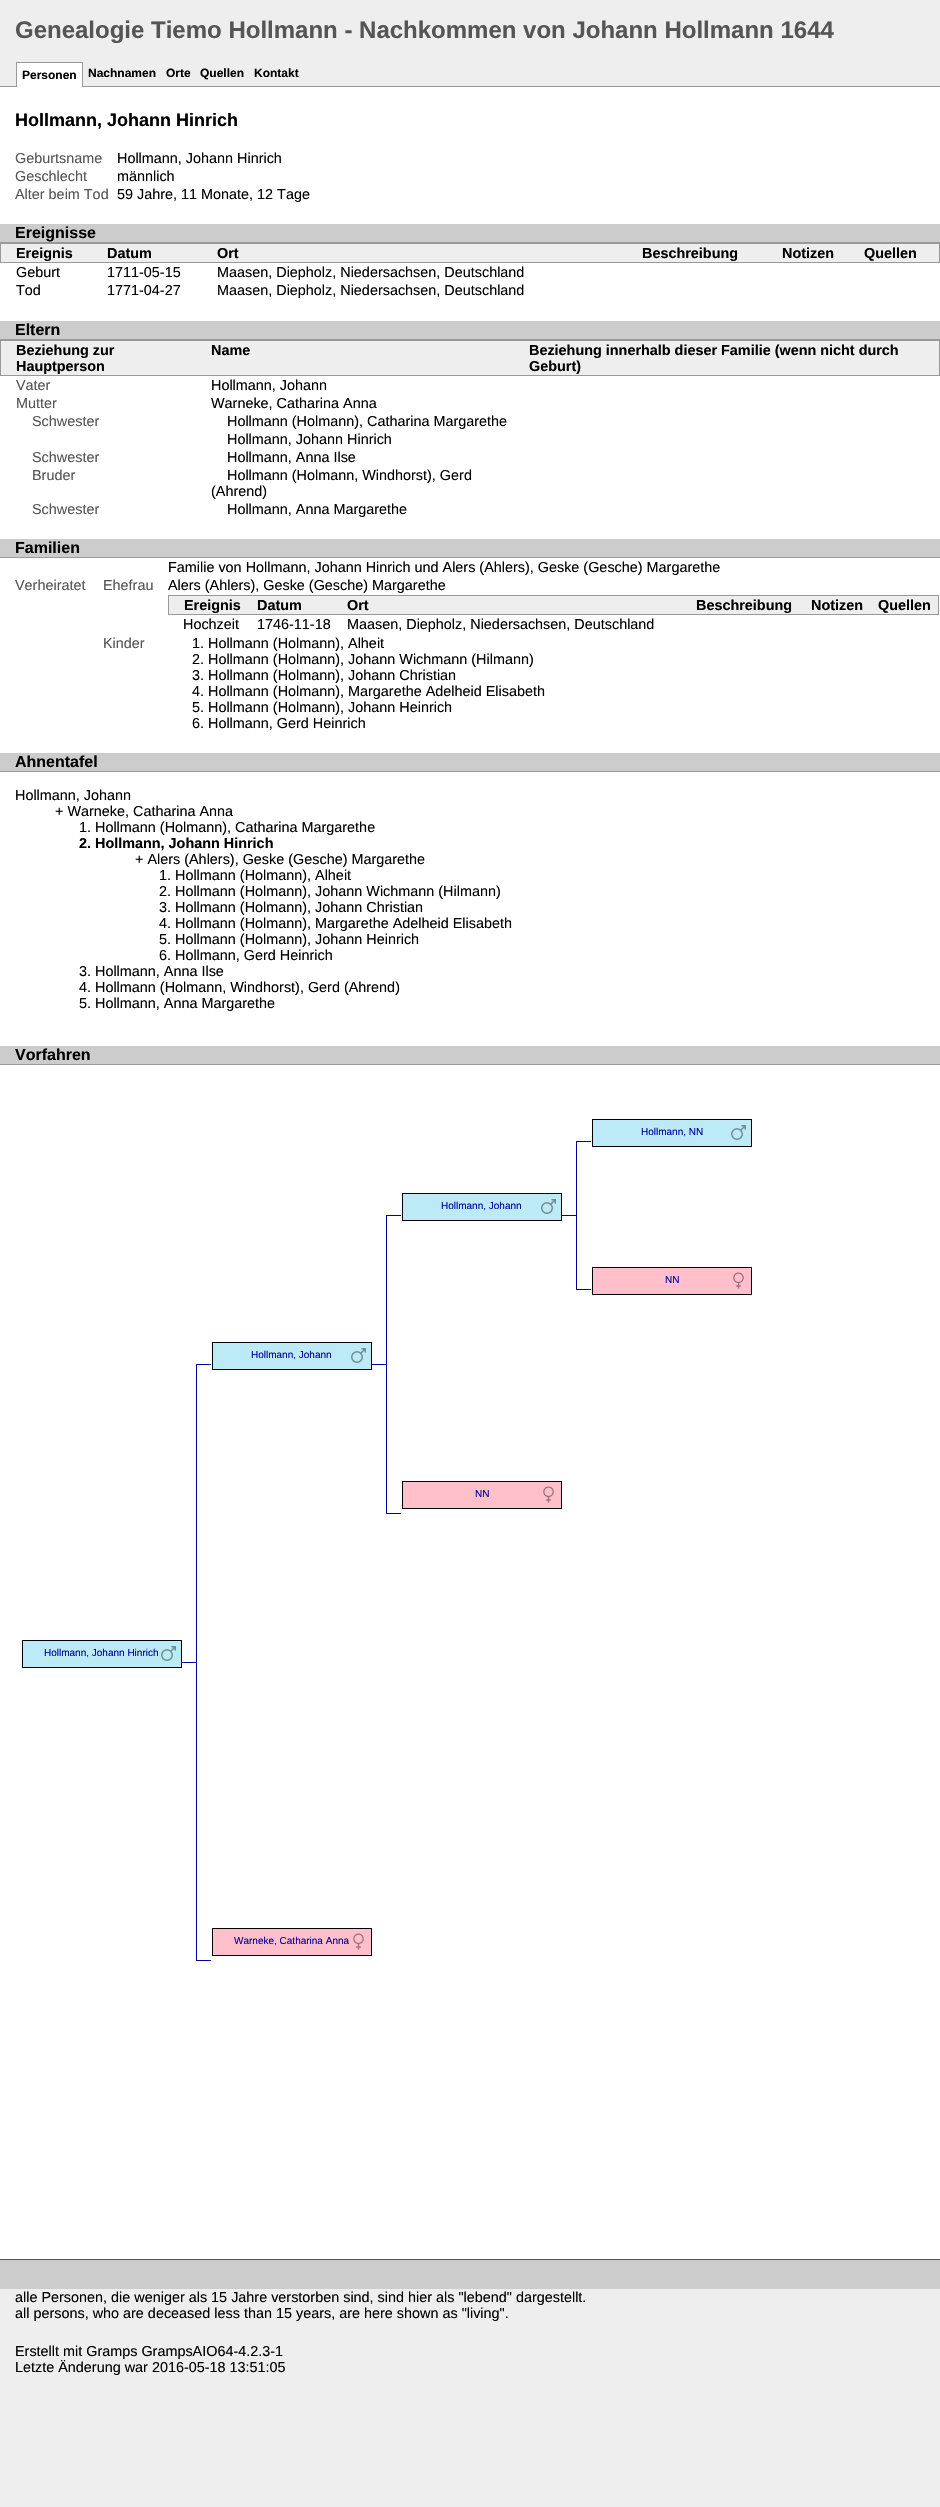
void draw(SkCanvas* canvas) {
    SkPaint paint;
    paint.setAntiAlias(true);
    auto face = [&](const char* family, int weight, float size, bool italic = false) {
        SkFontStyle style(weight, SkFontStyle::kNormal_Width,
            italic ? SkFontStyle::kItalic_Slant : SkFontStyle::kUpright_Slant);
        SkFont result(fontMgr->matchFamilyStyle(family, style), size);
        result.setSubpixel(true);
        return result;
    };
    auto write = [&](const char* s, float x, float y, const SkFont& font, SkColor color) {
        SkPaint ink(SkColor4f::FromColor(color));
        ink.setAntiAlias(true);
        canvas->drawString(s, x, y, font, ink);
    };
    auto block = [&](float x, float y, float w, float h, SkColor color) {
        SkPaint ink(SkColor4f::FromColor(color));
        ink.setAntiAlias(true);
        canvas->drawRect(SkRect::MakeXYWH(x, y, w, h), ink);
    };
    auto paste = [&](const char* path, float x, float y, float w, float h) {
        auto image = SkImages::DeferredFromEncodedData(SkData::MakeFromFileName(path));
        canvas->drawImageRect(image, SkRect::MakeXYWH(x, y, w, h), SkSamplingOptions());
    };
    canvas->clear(SkColorSetRGB(238, 238, 238));
    auto kFont1 = face("Liberation Sans", 700, 24);
    write("Genealogie Tiemo Hollmann - Nachkommen von Johann Hollmann 1644", 15, 38, kFont1, SkColorSetRGB(85, 85, 85));
    block(0, 86, 940, 1, SkColorSetRGB(153, 153, 153));
    block(17, 63, 65, 24, SK_ColorWHITE);
    block(16, 62, 67, 1, SkColorSetRGB(153, 153, 153));
    block(82, 62, 1, 25, SkColorSetRGB(153, 153, 153));
    block(16, 62, 1, 25, SkColorSetRGB(153, 153, 153));
    auto kFont2 = face("Liberation Sans", 700, 12);
    write("Personen", 22, 79, kFont2, SK_ColorBLACK);
    write("Nachnamen", 88, 77, kFont2, SK_ColorBLACK);
    write("Orte", 166, 77, kFont2, SK_ColorBLACK);
    write("Quellen", 200, 77, kFont2, SK_ColorBLACK);
    write("Kontakt", 254, 77, kFont2, SK_ColorBLACK);
    block(0, 87, 940, 2172, SK_ColorWHITE);
    auto kFont3 = face("Liberation Sans", 700, 18);
    write("Hollmann, Johann Hinrich", 15, 126, kFont3, SK_ColorBLACK);
    auto kFont4 = face("Liberation Sans", 400, 14.4f);
    write("Geburtsname", 15, 163, kFont4, SkColorSetRGB(85, 85, 85));
    write("Hollmann, Johann Hinrich", 117, 163, kFont4, SK_ColorBLACK);
    write("Geschlecht", 15, 181, kFont4, SkColorSetRGB(85, 85, 85));
    write("männlich", 117, 181, kFont4, SK_ColorBLACK);
    write("Alter beim Tod", 15, 199, kFont4, SkColorSetRGB(85, 85, 85));
    write("59 Jahre, 11 Monate, 12 Tage", 117, 199, kFont4, SK_ColorBLACK);
    block(0, 224, 940, 18, SkColorSetRGB(204, 204, 204));
    block(0, 242, 940, 1, SkColorSetRGB(153, 153, 153));
    auto kFont5 = face("Liberation Sans", 700, 16);
    write("Ereignisse", 15, 238, kFont5, SK_ColorBLACK);
    block(1, 244, 938, 18, SkColorSetRGB(238, 238, 238));
    block(0, 243, 940, 1, SkColorSetRGB(153, 153, 153));
    block(939, 243, 1, 20, SkColorSetRGB(153, 153, 153));
    block(0, 262, 940, 1, SkColorSetRGB(153, 153, 153));
    block(0, 243, 1, 20, SkColorSetRGB(153, 153, 153));
    auto kFont6 = face("Liberation Sans", 700, 14.4f);
    write("Ereignis", 16, 258, kFont6, SK_ColorBLACK);
    write("Datum", 107, 258, kFont6, SK_ColorBLACK);
    write("Ort", 217, 258, kFont6, SK_ColorBLACK);
    write("Beschreibung", 642, 258, kFont6, SK_ColorBLACK);
    write("Notizen", 782, 258, kFont6, SK_ColorBLACK);
    write("Quellen", 864, 258, kFont6, SK_ColorBLACK);
    write("Geburt", 16, 277, kFont4, SK_ColorBLACK);
    write("1711-05-15", 107, 277, kFont4, SK_ColorBLACK);
    write("Maasen, Diepholz, Niedersachsen, Deutschland", 217, 277, kFont4, SK_ColorBLACK);
    write("Tod", 16, 295, kFont4, SK_ColorBLACK);
    write("1771-04-27", 107, 295, kFont4, SK_ColorBLACK);
    write("Maasen, Diepholz, Niedersachsen, Deutschland", 217, 295, kFont4, SK_ColorBLACK);
    block(0, 321, 940, 18, SkColorSetRGB(204, 204, 204));
    block(0, 339, 940, 1, SkColorSetRGB(153, 153, 153));
    write("Eltern", 15, 335, kFont5, SK_ColorBLACK);
    block(1, 341, 938, 34, SkColorSetRGB(238, 238, 238));
    block(0, 340, 940, 1, SkColorSetRGB(153, 153, 153));
    block(939, 340, 1, 36, SkColorSetRGB(153, 153, 153));
    block(0, 375, 940, 1, SkColorSetRGB(153, 153, 153));
    block(0, 340, 1, 36, SkColorSetRGB(153, 153, 153));
    write("Beziehung zur", 16, 355, kFont6, SK_ColorBLACK);
    write("Hauptperson", 16, 371, kFont6, SK_ColorBLACK);
    write("Name", 211, 355, kFont6, SK_ColorBLACK);
    write("Beziehung innerhalb dieser Familie (wenn nicht durch", 529, 355, kFont6, SK_ColorBLACK);
    write("Geburt)", 529, 371, kFont6, SK_ColorBLACK);
    write("Vater", 16, 390, kFont4, SkColorSetRGB(85, 85, 85));
    write("Hollmann, Johann", 211, 390, kFont4, SK_ColorBLACK);
    write("Mutter", 16, 408, kFont4, SkColorSetRGB(85, 85, 85));
    write("Warneke, Catharina Anna", 211, 408, kFont4, SK_ColorBLACK);
    write("Schwester", 32, 426, kFont4, SkColorSetRGB(85, 85, 85));
    write("Hollmann (Holmann), Catharina Margarethe", 227, 426, kFont4, SK_ColorBLACK);
    write("Hollmann, Johann Hinrich", 227, 444, kFont4, SK_ColorBLACK);
    write("Schwester", 32, 462, kFont4, SkColorSetRGB(85, 85, 85));
    write("Hollmann, Anna Ilse", 227, 462, kFont4, SK_ColorBLACK);
    write("Bruder", 32, 480, kFont4, SkColorSetRGB(85, 85, 85));
    write("Hollmann (Holmann, Windhorst), Gerd", 227, 480, kFont4, SK_ColorBLACK);
    write("(Ahrend)", 211, 496, kFont4, SK_ColorBLACK);
    write("Schwester", 32, 514, kFont4, SkColorSetRGB(85, 85, 85));
    write("Hollmann, Anna Margarethe", 227, 514, kFont4, SK_ColorBLACK);
    block(0, 539, 940, 18, SkColorSetRGB(204, 204, 204));
    block(0, 557, 940, 1, SkColorSetRGB(153, 153, 153));
    write("Familien", 15, 553, kFont5, SK_ColorBLACK);
    write("Familie von Hollmann, Johann Hinrich und Alers (Ahlers), Geske (Gesche) Margarethe", 168, 572, kFont4, SK_ColorBLACK);
    write("Verheiratet", 15, 590, kFont4, SkColorSetRGB(85, 85, 85));
    write("Ehefrau", 103, 590, kFont4, SkColorSetRGB(85, 85, 85));
    write("Alers (Ahlers), Geske (Gesche) Margarethe", 168, 590, kFont4, SK_ColorBLACK);
    block(169, 596, 769, 18, SkColorSetRGB(238, 238, 238));
    block(168, 595, 771, 1, SkColorSetRGB(153, 153, 153));
    block(938, 595, 1, 20, SkColorSetRGB(153, 153, 153));
    block(168, 614, 771, 1, SkColorSetRGB(153, 153, 153));
    block(168, 595, 1, 20, SkColorSetRGB(153, 153, 153));
    write("Ereignis", 184, 610, kFont6, SK_ColorBLACK);
    write("Datum", 257, 610, kFont6, SK_ColorBLACK);
    write("Ort", 347, 610, kFont6, SK_ColorBLACK);
    write("Beschreibung", 696, 610, kFont6, SK_ColorBLACK);
    write("Notizen", 811, 610, kFont6, SK_ColorBLACK);
    write("Quellen", 878, 610, kFont6, SK_ColorBLACK);
    write("Hochzeit", 183, 629, kFont4, SK_ColorBLACK);
    write("1746-11-18", 257, 629, kFont4, SK_ColorBLACK);
    write("Maasen, Diepholz, Niedersachsen, Deutschland", 347, 629, kFont4, SK_ColorBLACK);
    write("Kinder", 103, 648, kFont4, SkColorSetRGB(85, 85, 85));
    write("1. Hollmann (Holmann), Alheit", 192, 648, kFont4, SK_ColorBLACK);
    write("2. Hollmann (Holmann), Johann Wichmann (Hilmann)", 192, 664, kFont4, SK_ColorBLACK);
    write("3. Hollmann (Holmann), Johann Christian", 192, 680, kFont4, SK_ColorBLACK);
    write("4. Hollmann (Holmann), Margarethe Adelheid Elisabeth", 192, 696, kFont4, SK_ColorBLACK);
    write("5. Hollmann (Holmann), Johann Heinrich", 192, 712, kFont4, SK_ColorBLACK);
    write("6. Hollmann, Gerd Heinrich", 192, 728, kFont4, SK_ColorBLACK);
    block(0, 753, 940, 18, SkColorSetRGB(204, 204, 204));
    block(0, 771, 940, 1, SkColorSetRGB(153, 153, 153));
    write("Ahnentafel", 15, 767, kFont5, SK_ColorBLACK);
    write("Hollmann, Johann", 15, 800, kFont4, SK_ColorBLACK);
    write("+ Warneke, Catharina Anna", 55, 816, kFont4, SK_ColorBLACK);
    write("1. Hollmann (Holmann), Catharina Margarethe", 79, 832, kFont4, SK_ColorBLACK);
    write("2. Hollmann, Johann Hinrich", 79, 848, kFont6, SK_ColorBLACK);
    write("+ Alers (Ahlers), Geske (Gesche) Margarethe", 135, 864, kFont4, SK_ColorBLACK);
    write("1. Hollmann (Holmann), Alheit", 159, 880, kFont4, SK_ColorBLACK);
    write("2. Hollmann (Holmann), Johann Wichmann (Hilmann)", 159, 896, kFont4, SK_ColorBLACK);
    write("3. Hollmann (Holmann), Johann Christian", 159, 912, kFont4, SK_ColorBLACK);
    write("4. Hollmann (Holmann), Margarethe Adelheid Elisabeth", 159, 928, kFont4, SK_ColorBLACK);
    write("5. Hollmann (Holmann), Johann Heinrich", 159, 944, kFont4, SK_ColorBLACK);
    write("6. Hollmann, Gerd Heinrich", 159, 960, kFont4, SK_ColorBLACK);
    write("3. Hollmann, Anna Ilse", 79, 976, kFont4, SK_ColorBLACK);
    write("4. Hollmann (Holmann, Windhorst), Gerd (Ahrend)", 79, 992, kFont4, SK_ColorBLACK);
    write("5. Hollmann, Anna Margarethe", 79, 1008, kFont4, SK_ColorBLACK);
    block(0, 1046, 940, 18, SkColorSetRGB(204, 204, 204));
    block(0, 1064, 940, 1, SkColorSetRGB(153, 153, 153));
    write("Vorfahren", 15, 1060, kFont5, SK_ColorBLACK);
    block(593, 1120, 158, 26, SkColorSetRGB(188, 234, 246));
    paste("pic1.png", 731, 1125, 15, 15);
    paint.setStyle(SkPaint::kStroke_Style);
    paint.setStrokeWidth(1);
    paint.setColor(SK_ColorBLACK);
    canvas->drawRect(SkRect::MakeXYWH(592.5f, 1119.5f, 159, 27), paint);
    auto kFont7 = face("Liberation Sans", 400, 10);
    write("Hollmann, NN", 641, 1135, kFont7, SkColorSetRGB(0, 2, 157));
    block(576, 1141, 15, 1, SkColorSetRGB(0, 2, 157));
    block(403, 1194, 158, 26, SkColorSetRGB(188, 234, 246));
    paste("pic1.png", 541, 1199, 15, 15);
    block(561, 1215, 15, 1, SkColorSetRGB(0, 2, 157));
    canvas->drawRect(SkRect::MakeXYWH(402.5f, 1193.5f, 159, 27), paint);
    write("Hollmann, Johann", 441, 1209, kFont7, SkColorSetRGB(0, 2, 157));
    block(576, 1141, 1, 148, SkColorSetRGB(0, 2, 157));
    block(386, 1215, 15, 1, SkColorSetRGB(0, 2, 157));
    block(386, 1215, 1, 298, SkColorSetRGB(0, 2, 157));
    block(593, 1268, 158, 26, SkColorSetRGB(255, 192, 203));
    paste("pic2.png", 733, 1272, 11, 17);
    canvas->drawRect(SkRect::MakeXYWH(592.5f, 1267.5f, 159, 27), paint);
    write("NN", 665, 1283, kFont7, SkColorSetRGB(0, 2, 157));
    block(576, 1289, 15, 1, SkColorSetRGB(0, 2, 157));
    block(213, 1343, 158, 26, SkColorSetRGB(188, 234, 246));
    paste("pic1.png", 351, 1348, 15, 15);
    block(371, 1364, 15, 1, SkColorSetRGB(0, 2, 157));
    canvas->drawRect(SkRect::MakeXYWH(212.5f, 1342.5f, 159, 27), paint);
    write("Hollmann, Johann", 251, 1358, kFont7, SkColorSetRGB(0, 2, 157));
    block(196, 1364, 15, 1, SkColorSetRGB(0, 2, 157));
    block(196, 1364, 1, 596, SkColorSetRGB(0, 2, 157));
    block(403, 1482, 158, 26, SkColorSetRGB(255, 192, 203));
    paste("pic2.png", 543, 1486, 11, 17);
    canvas->drawRect(SkRect::MakeXYWH(402.5f, 1481.5f, 159, 27), paint);
    write("NN", 475, 1497, kFont7, SkColorSetRGB(0, 2, 157));
    block(386, 1513, 15, 1, SkColorSetRGB(0, 2, 157));
    block(23, 1641, 158, 26, SkColorSetRGB(188, 234, 246));
    paste("pic1.png", 161, 1646, 15, 15);
    block(181, 1662, 15, 1, SkColorSetRGB(0, 2, 157));
    canvas->drawRect(SkRect::MakeXYWH(22.5f, 1640.5f, 159, 27), paint);
    write("Hollmann, Johann Hinrich", 44, 1656, kFont7, SkColorSetRGB(0, 2, 157));
    block(213, 1929, 158, 26, SkColorSetRGB(255, 192, 203));
    paste("pic2.png", 353, 1933, 11, 17);
    canvas->drawRect(SkRect::MakeXYWH(212.5f, 1928.5f, 159, 27), paint);
    write("Warneke, Catharina Anna", 234, 1944, kFont7, SkColorSetRGB(0, 2, 157));
    block(196, 1960, 15, 1, SkColorSetRGB(0, 2, 157));
    block(0, 2260, 940, 29, SkColorSetRGB(204, 204, 204));
    block(0, 2259, 940, 1, SkColorSetRGB(85, 85, 85));
    write("alle Personen, die weniger als 15 Jahre verstorben sind, sind hier als \"lebend\" dargestellt.", 15, 2302, kFont4, SK_ColorBLACK);
    write("all persons, who are deceased less than 15 years, are here shown as \"living\".", 15, 2318, kFont4, SK_ColorBLACK);
    write("Erstellt mit Gramps GrampsAIO64-4.2.3-1", 15, 2356, kFont4, SK_ColorBLACK);
    write("Letzte Änderung war 2016-05-18 13:51:05", 15, 2372, kFont4, SK_ColorBLACK);
}
